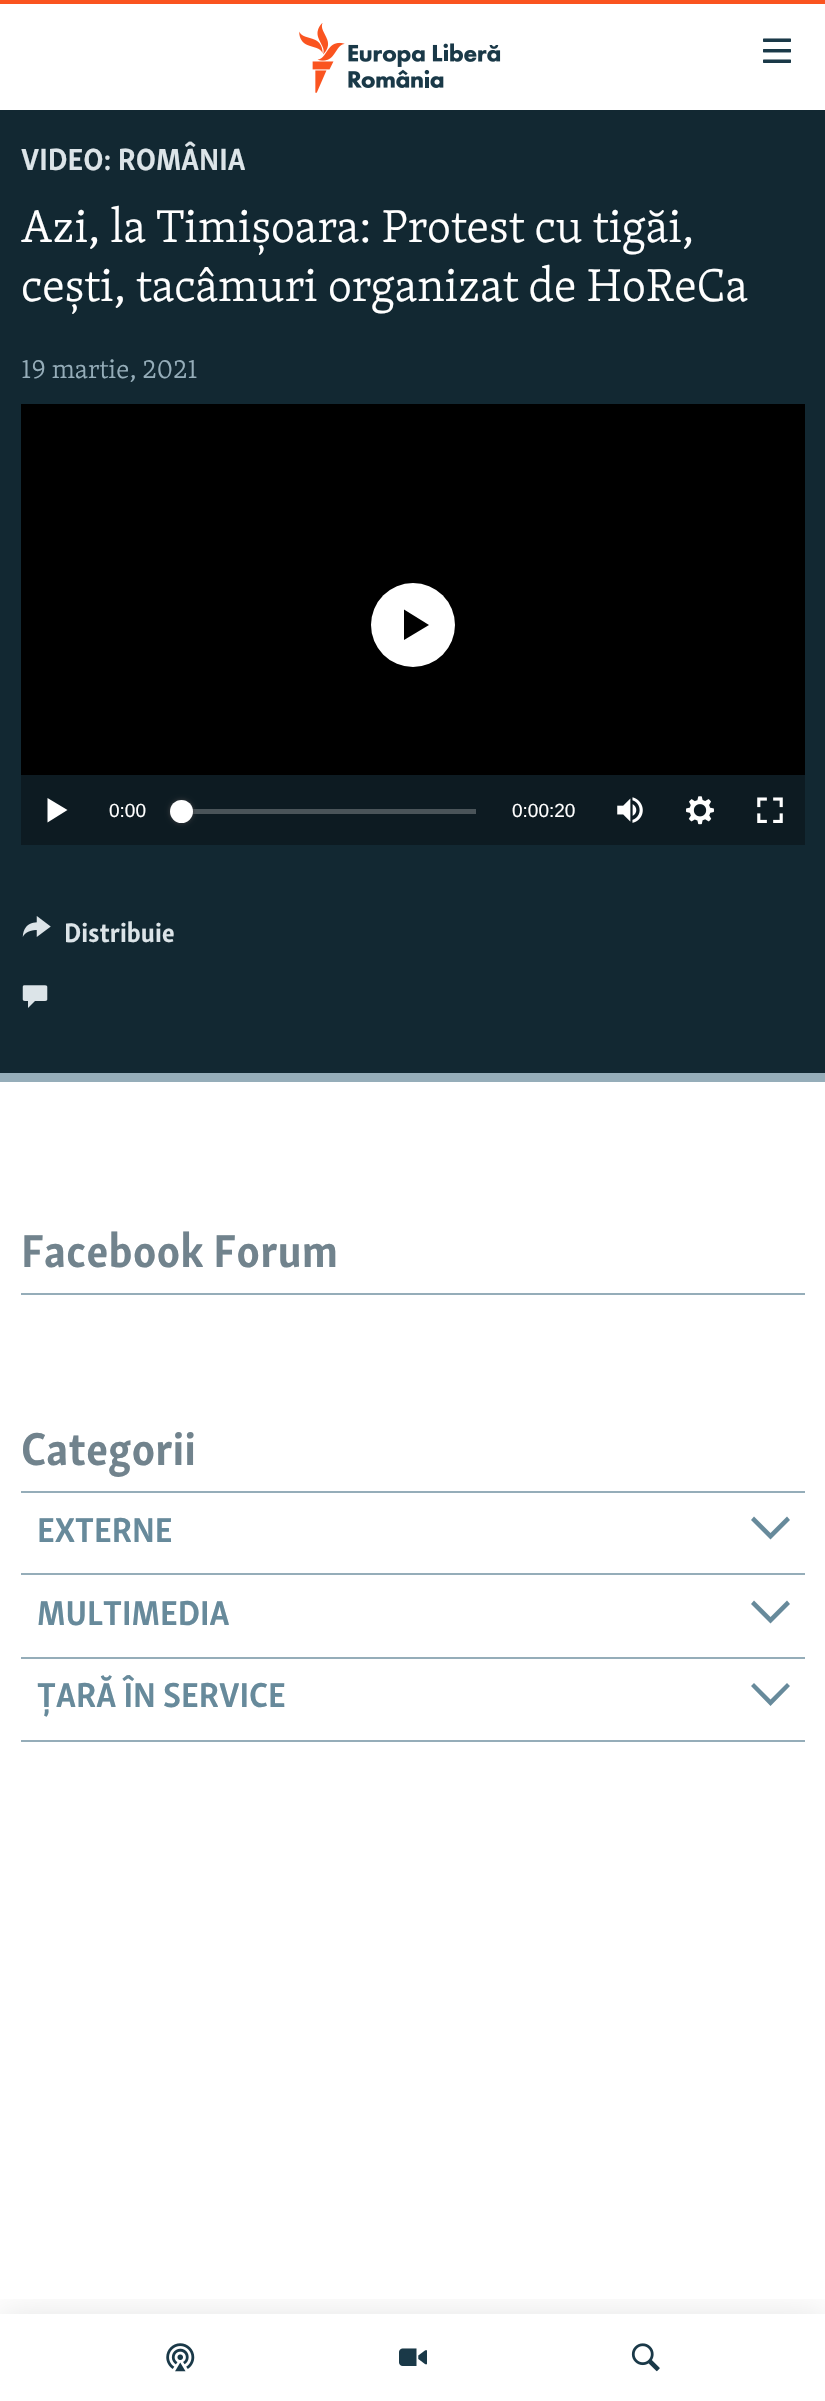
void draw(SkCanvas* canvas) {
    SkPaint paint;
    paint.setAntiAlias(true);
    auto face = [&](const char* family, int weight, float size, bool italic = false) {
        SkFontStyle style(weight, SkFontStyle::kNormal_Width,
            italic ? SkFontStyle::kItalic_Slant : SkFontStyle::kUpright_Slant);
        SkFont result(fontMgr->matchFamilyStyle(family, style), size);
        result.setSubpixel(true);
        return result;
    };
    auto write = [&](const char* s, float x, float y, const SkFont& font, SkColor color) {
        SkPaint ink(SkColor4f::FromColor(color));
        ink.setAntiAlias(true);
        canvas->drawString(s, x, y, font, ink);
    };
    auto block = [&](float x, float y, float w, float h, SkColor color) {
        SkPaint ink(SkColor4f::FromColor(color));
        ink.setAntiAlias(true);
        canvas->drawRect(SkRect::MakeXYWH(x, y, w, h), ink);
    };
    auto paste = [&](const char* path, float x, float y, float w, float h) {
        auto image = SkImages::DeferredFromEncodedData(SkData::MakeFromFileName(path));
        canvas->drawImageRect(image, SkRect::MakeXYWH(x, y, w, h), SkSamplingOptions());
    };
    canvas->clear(SK_ColorWHITE);
    block(0, 0, 825, 4, SkColorSetRGB(250, 84, 32));
    paste("pic1.png", 299, 23, 202, 70);
    paste("pic2.png", 763, 38, 28, 25);
    canvas->save();
    canvas->clipRect(SkRect::MakeXYWH(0, 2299, 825, 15));
    paint.setColor(SkColorSetARGB(26, 0, 0, 0));
    paint.setMaskFilter(SkMaskFilter::MakeBlur(kNormal_SkBlurStyle, 17.5f));
    canvas->drawRect(SkRect::MakeXYWH(0, 2314, 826, 87), paint);
    paint.setMaskFilter(nullptr);
    canvas->restore();
    paste("pic3.png", 166, 2343, 29, 29);
    paste("pic4.png", 399, 2348, 28, 18);
    paste("pic5.png", 631, 2343, 29, 29);
    block(0, 110, 825, 963, SkColorSetRGB(18, 40, 50));
    block(0, 1073, 825, 9, SkColorSetRGB(149, 173, 185));
    auto kFont1 = face("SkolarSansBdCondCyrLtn", 700, 31.5f);
    write("VIDEO: ROMÂNIA", 21, 170, kFont1, SkColorSetRGB(220, 228, 232));
    auto kFont2 = face("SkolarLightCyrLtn", 300, 47.25f);
    write("Azi, la Timișoara: Protest cu tigăi,", 21, 242, kFont2, SK_ColorWHITE);
    write("cești, tacâmuri organizat de HoReCa", 21, 301, kFont2, SK_ColorWHITE);
    auto kFont3 = face("SkolarLightCyrLtn", 300, 27.5f);
    write("19 martie, 2021", 21, 378, kFont3, SkColorSetRGB(149, 173, 185));
    block(21, 404, 784, 371, SK_ColorBLACK);
    paint.setColor(SK_ColorWHITE);
    canvas->drawCircle(413, 625, 42, paint);
    paint.setColor(SK_ColorBLACK);
    canvas->drawPath(SkPathBuilder().moveTo(404, 640).lineTo(429, 625).lineTo(404, 609.5f).close().detach(), paint);
    block(21, 775, 784, 70, SkColorSetRGB(13, 27, 34));
    paint.setColor(SK_ColorWHITE);
    canvas->drawPath(SkPathBuilder().moveTo(47.5f, 822.5f).lineTo(67.5f, 810).lineTo(47.5f, 798).close().detach(), paint);
    auto kFont4 = face("Liberation Sans", 400, 19);
    write("0:00", 109, 817, kFont4, SK_ColorWHITE);
    block(192, 809, 284, 5, SkColorSetRGB(74, 84, 89));
    paint.setColor(SkColorSetRGB(65, 65, 68));
    paint.setMaskFilter(SkMaskFilter::MakeBlur(kNormal_SkBlurStyle, 2.5f));
    canvas->drawRoundRect(SkRect::MakeXYWH(170, 800, 23, 23), 11.5f, 11.5f, paint);
    paint.setMaskFilter(nullptr);
    paint.setColor(SK_ColorWHITE);
    canvas->drawCircle(181.5f, 811.5f, 11.5f, paint);
    write("0:00:20", 512, 817, kFont4, SK_ColorWHITE);
    paste("pic6.png", 617, 797, 26, 26);
    paste("pic7.png", 686, 796, 28, 29);
    paste("pic8.png", 757, 797, 26, 26);
    paste("pic9.png", 22, 916, 29, 21);
    auto kFont5 = face("SkolarSansBdCondCyrLtn", 700, 27.5f);
    write("Distribuie", 64, 942, kFont5, SkColorSetRGB(220, 228, 232));
    paste("pic10.png", 22, 985, 26, 23);
    block(21, 1293, 784, 2, SkColorSetRGB(149, 173, 185));
    auto kFont6 = face("SkolarSansBdCondCyrLtn", 700, 47.25f);
    write("Facebook Forum", 21, 1267, kFont6, SkColorSetRGB(113, 131, 141));
    block(21, 1491, 784, 2, SkColorSetRGB(149, 173, 185));
    write("Categorii", 21, 1465, kFont6, SkColorSetRGB(113, 131, 141));
    block(21, 1573, 784, 2, SkColorSetRGB(149, 173, 185));
    auto kFont7 = face("SkolarSansBdCondCyrLtn", 700, 35.5f);
    write("EXTERNE", 37, 1542, kFont7, SkColorSetRGB(103, 138, 155));
    paint.setColor(SkColorSetRGB(103, 138, 155));
    canvas->drawPath(SkPathBuilder().moveTo(751, 1520).lineTo(770.5f, 1539.5f).lineTo(790, 1520).lineTo(787, 1516.5f).lineTo(770.5f, 1533).lineTo(754, 1516.5f).close().detach(), paint);
    block(21, 1657, 784, 2, SkColorSetRGB(149, 173, 185));
    write("MULTIMEDIA", 37, 1625, kFont7, SkColorSetRGB(103, 138, 155));
    canvas->drawPath(SkPathBuilder().moveTo(751, 1604).lineTo(770.5f, 1623.5f).lineTo(790, 1604).lineTo(787, 1600.5f).lineTo(770.5f, 1617).lineTo(754, 1600.5f).close().detach(), paint);
    block(21, 1740, 784, 2, SkColorSetRGB(149, 173, 185));
    write("ȚARĂ ÎN SERVICE", 37, 1707, kFont7, SkColorSetRGB(103, 138, 155));
    canvas->drawPath(SkPathBuilder().moveTo(751, 1686).lineTo(770.5f, 1706).lineTo(790, 1686).lineTo(787, 1683).lineTo(770.5f, 1699.5f).lineTo(754, 1683).close().detach(), paint);
}
